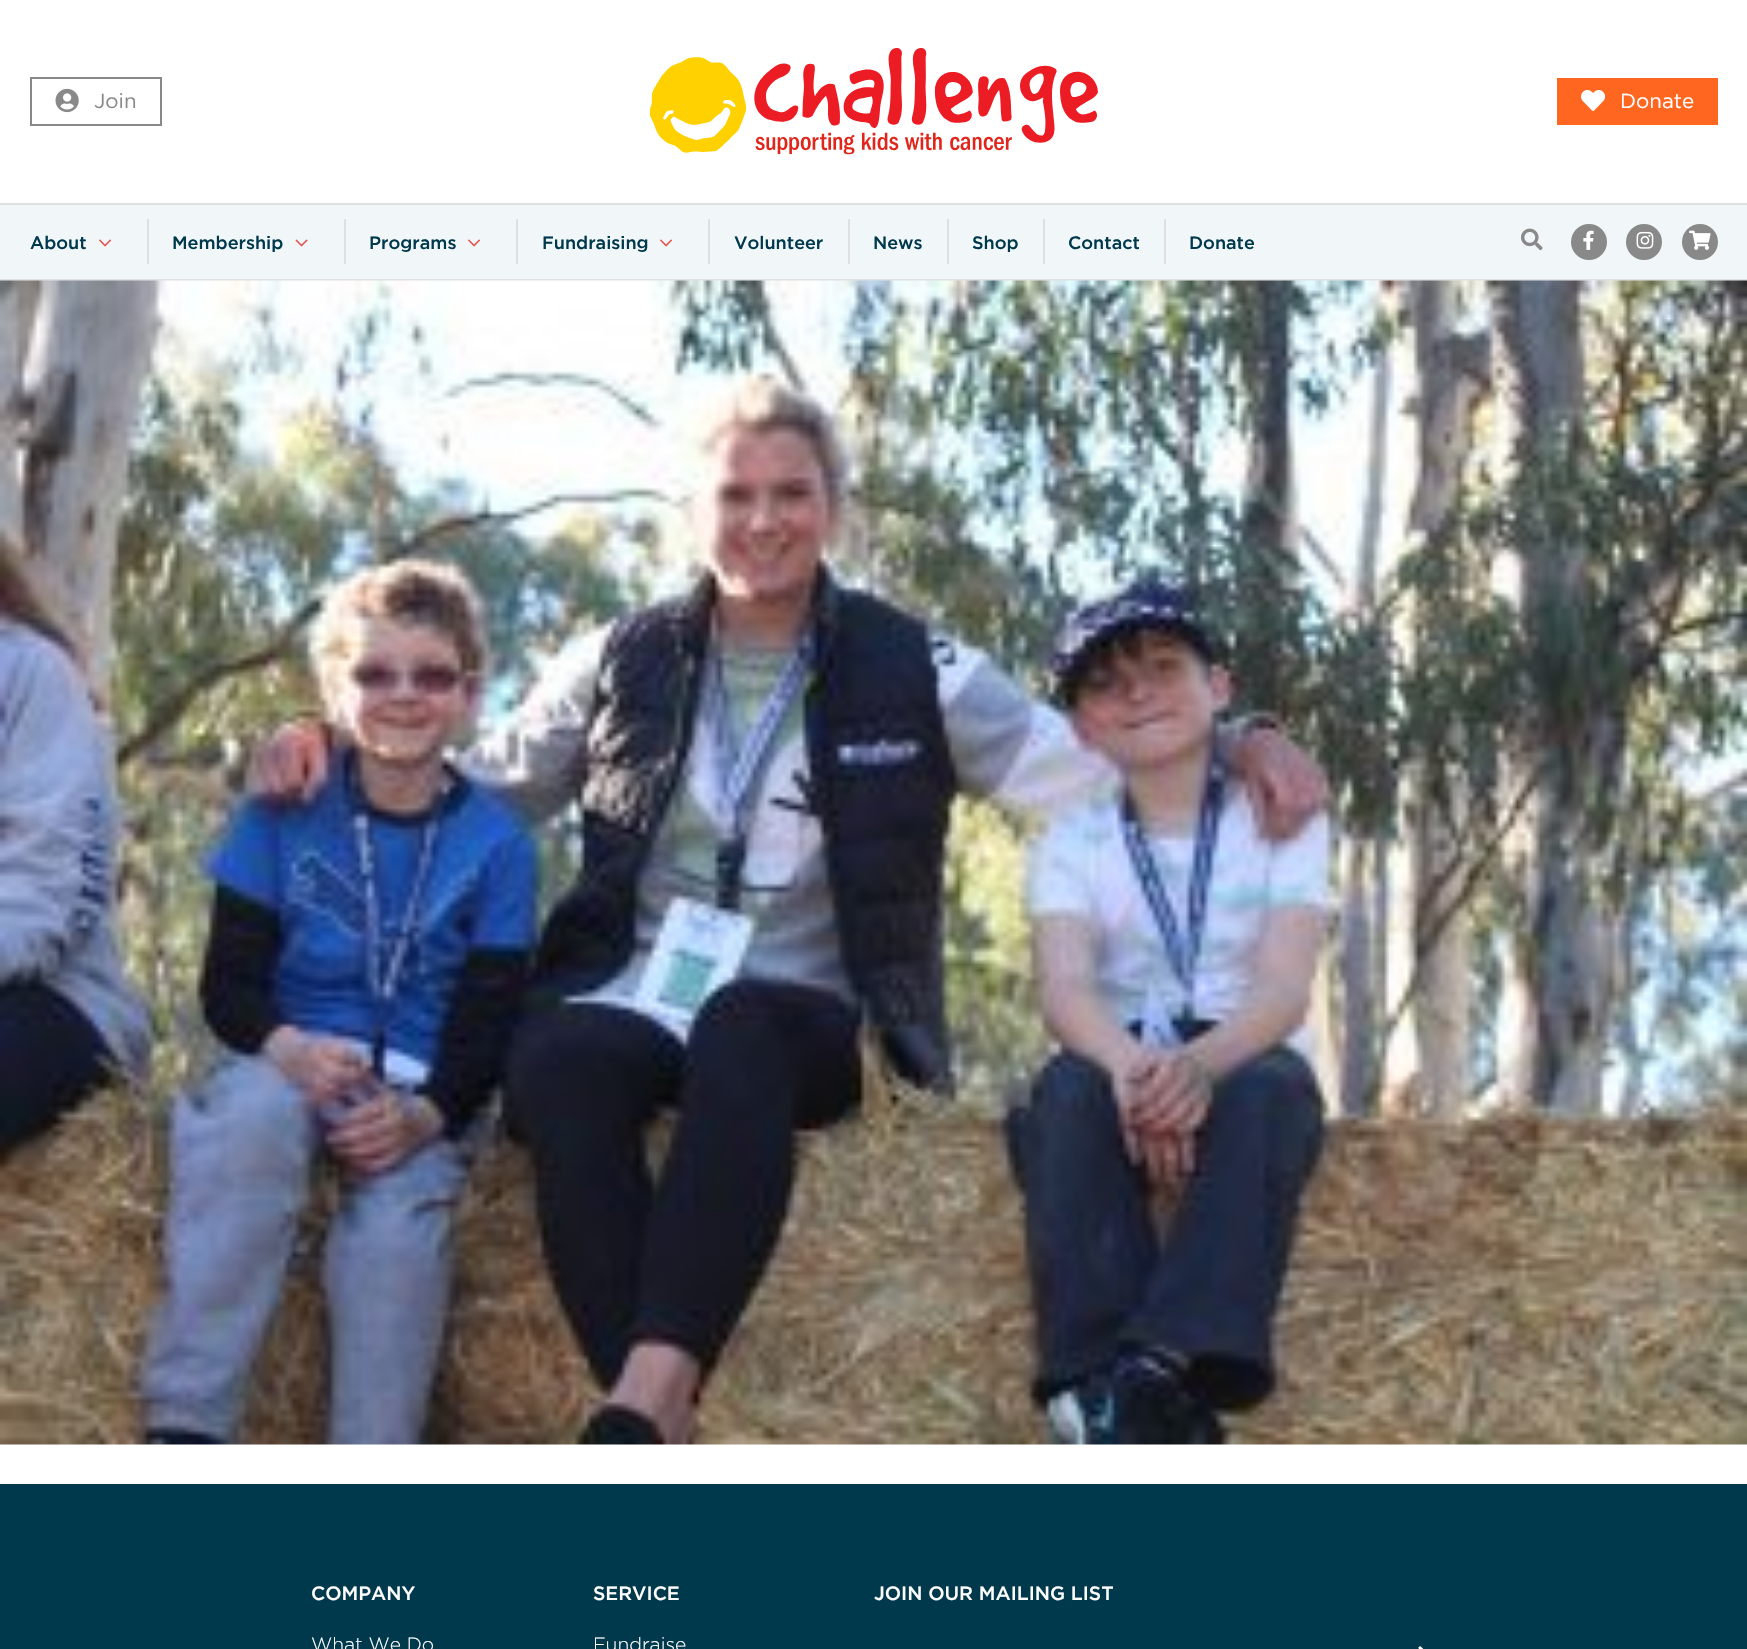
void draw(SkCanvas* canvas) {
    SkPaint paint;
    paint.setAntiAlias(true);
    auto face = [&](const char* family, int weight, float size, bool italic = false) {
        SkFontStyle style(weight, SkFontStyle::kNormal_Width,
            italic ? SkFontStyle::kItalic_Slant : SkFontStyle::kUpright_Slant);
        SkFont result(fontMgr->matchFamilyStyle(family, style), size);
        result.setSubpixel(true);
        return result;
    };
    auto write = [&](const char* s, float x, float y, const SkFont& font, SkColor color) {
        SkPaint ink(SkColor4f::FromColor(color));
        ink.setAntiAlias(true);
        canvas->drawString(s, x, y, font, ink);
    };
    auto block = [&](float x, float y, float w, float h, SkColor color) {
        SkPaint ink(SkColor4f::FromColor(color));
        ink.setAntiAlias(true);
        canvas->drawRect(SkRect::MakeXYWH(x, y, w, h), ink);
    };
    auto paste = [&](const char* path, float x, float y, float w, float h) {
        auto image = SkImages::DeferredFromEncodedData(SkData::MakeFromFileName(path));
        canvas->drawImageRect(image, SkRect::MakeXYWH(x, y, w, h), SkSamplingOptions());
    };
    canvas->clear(SK_ColorWHITE);
    paint.setStyle(SkPaint::kStroke_Style);
    paint.setStrokeWidth(2);
    paint.setColor(SkColorSetRGB(137, 137, 137));
    canvas->drawRect(SkRect::MakeXYWH(31, 78, 130, 47), paint);
    paste("pic1.png", 55, 88, 24, 25);
    auto kFont1 = face("Gotham", 400, 20.5f);
    write("Join", 94, 108, kFont1, SkColorSetRGB(137, 137, 137));
    paste("pic2.png", 650, 48, 448, 107);
    block(1557, 78, 161, 47, SkColorSetRGB(255, 103, 32));
    paste("pic3.png", 1581, 90, 25, 21);
    write("Donate", 1620, 108, kFont1, SK_ColorWHITE);
    block(0, 205, 1747, 74, SkColorSetRGB(241, 247, 249));
    block(0, 203, 1747, 2, SkColorSetRGB(224, 224, 224));
    block(0, 279, 1747, 2, SkColorSetRGB(224, 224, 224));
    auto kFont2 = face("Gotham", 500, 18);
    write("About", 30, 249, kFont2, SkColorSetRGB(0, 56, 76));
    paste("pic4.png", 99, 239, 12, 8);
    block(147, 219, 2, 45, SkColorSetRGB(224, 224, 224));
    write("Membership", 172, 249, kFont2, SkColorSetRGB(0, 56, 76));
    paste("pic5.png", 295, 239, 13, 8);
    block(344, 219, 2, 45, SkColorSetRGB(224, 224, 224));
    write("Programs", 369, 249, kFont2, SkColorSetRGB(0, 56, 76));
    paste("pic4.png", 468, 239, 12, 8);
    block(516, 219, 2, 45, SkColorSetRGB(224, 224, 224));
    write("Fundraising", 542, 249, kFont2, SkColorSetRGB(0, 56, 76));
    paste("pic4.png", 660, 239, 12, 8);
    block(708, 219, 2, 45, SkColorSetRGB(224, 224, 224));
    write("Volunteer", 734, 249, kFont2, SkColorSetRGB(0, 56, 76));
    block(848, 219, 2, 45, SkColorSetRGB(224, 224, 224));
    write("News", 873, 249, kFont2, SkColorSetRGB(0, 56, 76));
    block(947, 219, 2, 45, SkColorSetRGB(224, 224, 224));
    write("Shop", 972, 249, kFont2, SkColorSetRGB(0, 56, 76));
    block(1043, 219, 2, 45, SkColorSetRGB(224, 224, 224));
    write("Contact", 1068, 249, kFont2, SkColorSetRGB(0, 56, 76));
    block(1164, 219, 2, 45, SkColorSetRGB(224, 224, 224));
    write("Donate", 1189, 249, kFont2, SkColorSetRGB(0, 56, 76));
    paste("pic6.png", 1521, 228, 22, 23);
    paint.setStyle(SkPaint::kFill_Style);
    canvas->drawCircle(1589, 242, 18, paint);
    paste("pic7.png", 1583, 230, 11, 20);
    canvas->drawCircle(1644, 242, 18, paint);
    paste("pic8.png", 1636, 231, 18, 18);
    canvas->drawCircle(1700, 242, 18, paint);
    paste("pic9.png", 1689, 230, 22, 20);
    paste("pic10.png", 0, 280, 1747, 1165);
    block(0, 1484, 1747, 165, SkColorSetRGB(0, 56, 76));
    auto kFont3 = face("Gotham", 500, 19.25f);
    write("COMPANY", 311, 1600, kFont3, SK_ColorWHITE);
    auto kFont4 = face("Gotham", 300, 19.25f);
    write("What We Do", 311, 1651, kFont4, SK_ColorWHITE);
    write("SERVICE", 593, 1600, kFont3, SK_ColorWHITE);
    write("Fundraise", 593, 1651, kFont4, SK_ColorWHITE);
    write("JOIN OUR MAILING LIST", 874, 1600, kFont3, SK_ColorWHITE);
    paste("pic11.png", 1418, 1646, 6, 3);
}
